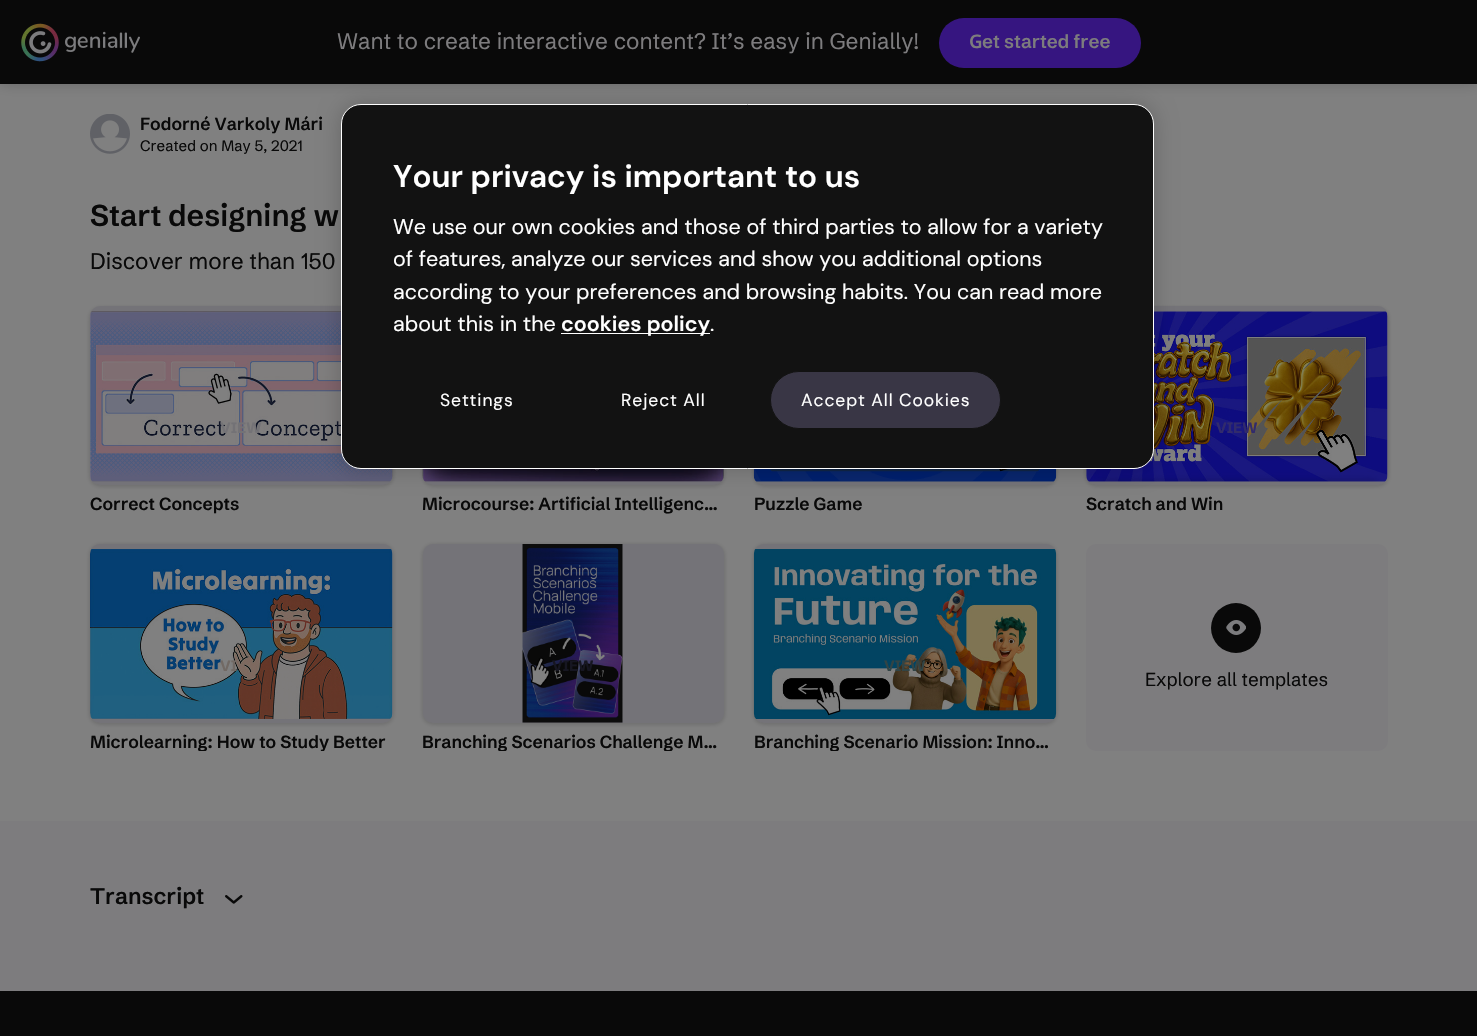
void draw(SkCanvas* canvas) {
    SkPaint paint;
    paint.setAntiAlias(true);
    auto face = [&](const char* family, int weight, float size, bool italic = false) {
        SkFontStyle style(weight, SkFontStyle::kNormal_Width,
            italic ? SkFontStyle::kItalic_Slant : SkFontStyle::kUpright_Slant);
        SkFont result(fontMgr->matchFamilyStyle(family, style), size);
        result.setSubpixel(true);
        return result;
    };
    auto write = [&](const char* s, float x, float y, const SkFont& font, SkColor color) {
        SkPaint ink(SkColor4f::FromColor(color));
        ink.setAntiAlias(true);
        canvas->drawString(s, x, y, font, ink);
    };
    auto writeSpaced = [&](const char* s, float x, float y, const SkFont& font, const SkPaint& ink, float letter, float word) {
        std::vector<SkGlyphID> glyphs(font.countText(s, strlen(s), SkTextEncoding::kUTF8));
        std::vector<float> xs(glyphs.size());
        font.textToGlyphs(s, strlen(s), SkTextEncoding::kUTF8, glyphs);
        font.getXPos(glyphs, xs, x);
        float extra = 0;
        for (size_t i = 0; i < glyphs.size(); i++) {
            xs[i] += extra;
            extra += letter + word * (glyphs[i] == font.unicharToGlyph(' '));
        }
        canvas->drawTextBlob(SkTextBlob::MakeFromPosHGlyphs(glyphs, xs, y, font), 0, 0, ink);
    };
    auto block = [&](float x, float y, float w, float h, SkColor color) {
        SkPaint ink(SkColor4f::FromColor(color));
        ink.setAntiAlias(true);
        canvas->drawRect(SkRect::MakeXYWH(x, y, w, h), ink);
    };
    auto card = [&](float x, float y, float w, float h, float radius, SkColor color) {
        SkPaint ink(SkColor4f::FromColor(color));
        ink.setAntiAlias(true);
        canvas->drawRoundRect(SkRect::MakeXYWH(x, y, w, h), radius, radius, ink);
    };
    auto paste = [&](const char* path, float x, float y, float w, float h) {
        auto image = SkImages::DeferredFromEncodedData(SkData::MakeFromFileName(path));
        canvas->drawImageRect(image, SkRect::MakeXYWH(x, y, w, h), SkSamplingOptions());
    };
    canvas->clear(SkColorSetRGB(128, 128, 128));
    paint.setColor(SkColorSetARGB(77, 9, 9, 9));
    paint.setMaskFilter(SkMaskFilter::MakeBlur(kNormal_SkBlurStyle, 8));
    canvas->drawRect(SkRect::MakeXYWH(0, -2, 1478, 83), paint);
    paint.setMaskFilter(nullptr);
    block(0, 0, 1477, 84, SkColorSetRGB(9, 9, 9));
    paste("pic1.png", 21, 23, 119, 39);
    auto kFont1 = face("Schibsted Grotesk", 400, 22.5f);
    write("Want to create interactive content? It’s easy in Genially!", 337, 49, kFont1, SkColorSetRGB(125, 124, 126));
    card(939, 18, 202, 50, 25, SkColorSetRGB(54, 21, 128));
    auto kFont2 = face("Noto Sans", 600, 18.75f);
    write("G", 969, 48, kFont2, SkColorSetRGB(125, 124, 126));
    auto kFont3 = face("Schibsted Grotesk", 600, 18.75f);
    write("et started free", 982, 48, kFont3, SkColorSetRGB(125, 124, 126));
    paste("pic2.png", 90, 114, 40, 40);
    auto kFont4 = face("Schibsted Grotesk", 600, 17.5f);
    write("Fodorné Varkoly Mári", 140, 130, kFont4, SkColorSetRGB(9, 9, 9));
    auto kFont5 = face("Schibsted Grotesk", 400, 15);
    write("Created on May 5, 2021", 140, 151, kFont5, SkColorSetRGB(9, 9, 9));
    auto kFont6 = face("Schibsted Grotesk", 600, 30);
    write("Start designing w", 90, 226, kFont6, SkColorSetRGB(9, 9, 9));
    write("Discover more than 150", 90, 269, kFont1, SkColorSetRGB(9, 9, 9));
    paint.setColor(SkColorSetARGB(51, 9, 9, 9));
    paint.setMaskFilter(SkMaskFilter::MakeBlur(kNormal_SkBlurStyle, 2.5f));
    canvas->drawRoundRect(SkRect::MakeXYWH(90, 308, 303, 178), 10, 10, paint);
    paint.setMaskFilter(nullptr);
    card(90, 306, 303, 179, 10, SkColorSetRGB(116, 115, 120));
    paste("pic3.png", 90, 311, 303, 171);
    auto kFont7 = face("Schibsted Grotesk", 700, 15);
    write("VIEW", 220, 433, kFont7, SkColorSetRGB(115, 114, 118));
    write("Correct Concepts", 90, 510, kFont4, SkColorSetRGB(9, 9, 9));
    paint.setMaskFilter(SkMaskFilter::MakeBlur(kNormal_SkBlurStyle, 2.5f));
    canvas->drawRoundRect(SkRect::MakeXYWH(423, 308, 301, 178), 10, 10, paint);
    paint.setMaskFilter(nullptr);
    card(423, 306, 301, 179, 10, SkColorSetRGB(116, 115, 120));
    paste("pic4.png", 422, 469, 302, 13);
    write("Microcourse: Artificial Intelligenc…", 422, 510, kFont4, SkColorSetRGB(9, 9, 9));
    paint.setMaskFilter(SkMaskFilter::MakeBlur(kNormal_SkBlurStyle, 2.5f));
    canvas->drawRoundRect(SkRect::MakeXYWH(754, 308, 302, 178), 10, 10, paint);
    paint.setMaskFilter(nullptr);
    card(754, 306, 302, 179, 10, SkColorSetRGB(116, 115, 120));
    paste("pic5.png", 753, 469, 304, 13);
    write("Puzzle Game", 754, 510, kFont4, SkColorSetRGB(9, 9, 9));
    paint.setMaskFilter(SkMaskFilter::MakeBlur(kNormal_SkBlurStyle, 2.5f));
    canvas->drawRoundRect(SkRect::MakeXYWH(1086, 308, 302, 178), 10, 10, paint);
    paint.setMaskFilter(nullptr);
    card(1086, 306, 302, 179, 10, SkColorSetRGB(116, 115, 120));
    paste("pic6.png", 1086, 311, 302, 171);
    write("VIEW", 1216, 433, kFont7, SkColorSetRGB(49, 43, 108));
    write("Scratch and Win", 1086, 510, kFont4, SkColorSetRGB(9, 9, 9));
    paint.setMaskFilter(SkMaskFilter::MakeBlur(kNormal_SkBlurStyle, 2.5f));
    canvas->drawRoundRect(SkRect::MakeXYWH(90, 545, 303, 179), 10, 10, paint);
    paint.setMaskFilter(nullptr);
    card(90, 544, 303, 179, 10, SkColorSetRGB(116, 115, 120));
    paste("pic7.png", 90, 549, 303, 170);
    write("VI", 220, 671, kFont7, SkColorSetRGB(113, 105, 100));
    canvas->save();
    canvas->clipRect(SkRect::MakeXYWH(90, 733, 303, 18));
    write("Microlearning: How to Study Better", 90, 748, kFont4, SkColorSetRGB(9, 9, 9));
    canvas->restore();
    paint.setMaskFilter(SkMaskFilter::MakeBlur(kNormal_SkBlurStyle, 2.5f));
    canvas->drawRoundRect(SkRect::MakeXYWH(423, 545, 301, 179), 10, 10, paint);
    paint.setMaskFilter(nullptr);
    card(423, 544, 301, 179, 10, SkColorSetRGB(116, 115, 120));
    paste("pic8.png", 522, 544, 101, 179);
    write("VIEW", 552, 671, kFont7, SkColorSetRGB(22, 22, 33));
    canvas->save();
    canvas->clipRect(SkRect::MakeXYWH(423, 733, 301, 18));
    write("Branching Scenarios Challenge M…", 422, 748, kFont4, SkColorSetRGB(9, 9, 9));
    canvas->restore();
    paint.setMaskFilter(SkMaskFilter::MakeBlur(kNormal_SkBlurStyle, 2.5f));
    canvas->drawRoundRect(SkRect::MakeXYWH(754, 545, 302, 179), 10, 10, paint);
    paint.setMaskFilter(nullptr);
    card(754, 544, 302, 179, 10, SkColorSetRGB(116, 115, 120));
    paste("pic9.png", 753, 549, 304, 170);
    write("VIEW", 884, 671, kFont7, SkColorSetRGB(50, 68, 69));
    canvas->save();
    canvas->clipRect(SkRect::MakeXYWH(754, 733, 302, 18));
    write("Branching Scenario Mission: Inno…", 754, 748, kFont4, SkColorSetRGB(9, 9, 9));
    canvas->restore();
    card(1086, 544, 302, 207, 10, SkColorSetRGB(125, 124, 126));
    paint.setColor(SkColorSetRGB(9, 9, 9));
    canvas->drawCircle(1236, 628, 25, paint);
    paste("pic10.png", 1226, 620, 20, 15);
    auto kFont8 = face("Schibsted Grotesk", 400, 18.75f);
    write("Explore all templates", 1145, 686, kFont8, SkColorSetRGB(9, 9, 9));
    block(0, 821, 1477, 170, SkColorSetRGB(125, 124, 126));
    auto kFont9 = face("Schibsted Grotesk", 600, 22.5f);
    write("Transcript", 90, 904, kFont9, SkColorSetRGB(9, 9, 9));
    paste("pic11.png", 225, 895, 18, 9);
    block(0, 991, 1477, 45, SkColorSetRGB(9, 9, 9));
    paint.setColor(SkColorSetARGB(51, 0, 0, 0));
    paint.setMaskFilter(SkMaskFilter::MakeBlur(kNormal_SkBlurStyle, 11));
    canvas->drawRoundRect(SkRect::MakeXYWH(341, 104, 813, 365), 20, 20, paint);
    paint.setMaskFilter(nullptr);
    paint.setColor(SkColorSetRGB(18, 18, 18));
    canvas->drawRoundRect(SkRect::MakeXYWH(341.5f, 104.5f, 812, 364), 19.5f, 19.5f, paint);
    paint.setStyle(SkPaint::kStroke_Style);
    paint.setStrokeWidth(1);
    paint.setColor(SK_ColorWHITE);
    canvas->drawRoundRect(SkRect::MakeXYWH(341.5f, 104.5f, 812, 364), 19.5f, 19.5f, paint);
    auto kFont10 = face("DM Sans", 600, 31.5f);
    write("Your privacy is important to us", 393, 187, kFont10, SK_ColorWHITE);
    auto kFont11 = face("DM Sans", 400, 21.5f);
    write("We use our own cookies and those of third parties to allow for a variety", 393, 234, kFont11, SK_ColorWHITE);
    write("of features, analyze our services and show you additional options", 393, 266, kFont11, SK_ColorWHITE);
    write("according to your preferences and browsing habits. You can read more", 393, 299, kFont11, SK_ColorWHITE);
    write("about this in the", 393, 331, kFont11, SK_ColorWHITE);
    block(561, 333, 149, 1, SK_ColorWHITE);
    auto kFont12 = face("DM Sans", 600, 21.5f);
    write("cookies policy", 561, 331, kFont12, SK_ColorWHITE);
    write(".", 710, 331, kFont11, SK_ColorWHITE);
    auto kFont13 = face("DM Sans", 400, 17.5f);
    paint.setStyle(SkPaint::kFill_Style);
    writeSpaced("Settings", 440, 406, kFont13, paint, 0.9f, 0);
    writeSpaced("Reject All", 621, 406, kFont13, paint, 0.9f, 0);
    paint.setColor(SkColorSetRGB(57, 54, 69));
    canvas->drawRoundRect(SkRect::MakeXYWH(770.5f, 371.5f, 230, 57), 28.5f, 28.5f, paint);
    paint.setStyle(SkPaint::kStroke_Style);
    paint.setColor(SkColorSetRGB(18, 18, 18));
    canvas->drawRoundRect(SkRect::MakeXYWH(770.5f, 371.5f, 230, 57), 28.5f, 28.5f, paint);
    paint.setStyle(SkPaint::kFill_Style);
    paint.setColor(SK_ColorWHITE);
    writeSpaced("Accept All Cookies", 801, 406, kFont13, paint, 0.9f, 0);
}
